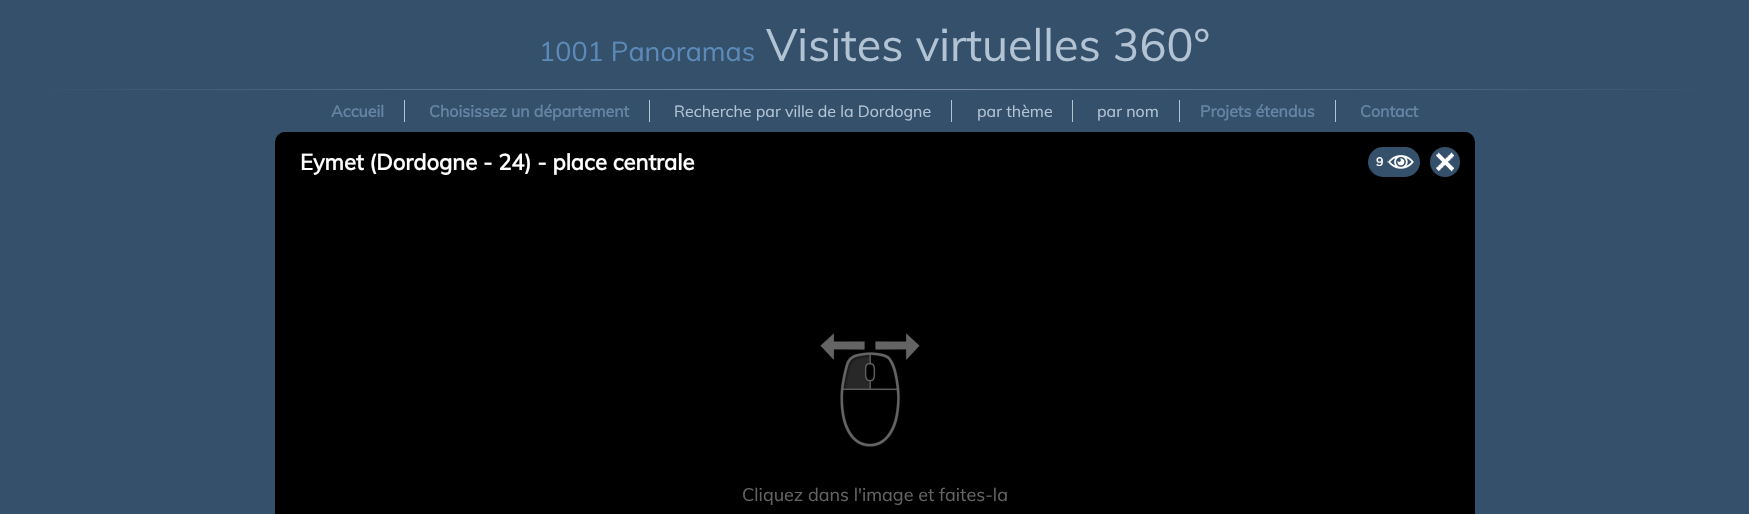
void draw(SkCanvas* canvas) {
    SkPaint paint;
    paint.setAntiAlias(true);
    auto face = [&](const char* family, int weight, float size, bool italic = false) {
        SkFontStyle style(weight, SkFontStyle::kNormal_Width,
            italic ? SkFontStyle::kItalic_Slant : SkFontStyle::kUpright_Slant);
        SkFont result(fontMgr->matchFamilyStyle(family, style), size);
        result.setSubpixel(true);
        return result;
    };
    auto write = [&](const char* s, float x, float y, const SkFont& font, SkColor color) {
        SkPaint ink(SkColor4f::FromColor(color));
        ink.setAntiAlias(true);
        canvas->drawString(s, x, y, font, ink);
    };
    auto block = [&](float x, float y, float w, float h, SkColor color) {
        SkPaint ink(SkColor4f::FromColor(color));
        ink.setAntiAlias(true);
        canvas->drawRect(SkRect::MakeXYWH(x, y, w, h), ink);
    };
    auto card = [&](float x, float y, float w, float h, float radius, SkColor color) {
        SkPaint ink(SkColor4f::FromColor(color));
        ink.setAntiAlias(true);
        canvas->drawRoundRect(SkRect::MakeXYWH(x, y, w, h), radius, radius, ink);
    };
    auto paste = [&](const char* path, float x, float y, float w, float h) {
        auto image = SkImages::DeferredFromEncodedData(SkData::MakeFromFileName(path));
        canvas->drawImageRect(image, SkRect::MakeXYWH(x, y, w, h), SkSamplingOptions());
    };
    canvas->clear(SkColorSetRGB(53, 80, 107));
    auto kFont1 = face("Muli", 400, 27);
    write("1001 Panoramas", 539, 61, kFont1, SkColorSetRGB(92, 138, 184));
    auto kFont2 = face("Muli", 400, 45);
    write("Visites virtuelles 360°", 766, 61, kFont2, SkColorSetRGB(178, 195, 212));
    {
        const SkColor colors[] = {SkColorSetRGB(53, 80, 107), SkColorSetRGB(122, 143, 165), SkColorSetRGB(53, 80, 107)};
        const float stops[] = {0, 0.5f, 1};
        const SkPoint ends[] = {{20, 90}, {1729, 89}};
        paint.setShader(SkGradientShader::MakeLinear(ends, colors, stops, 3, SkTileMode::kClamp));
        paint.setAlpha(255);
    }
    canvas->drawRect(SkRect::MakeXYWH(51, 89, 1647, 1), paint);
    block(404, 100, 1, 22, SkColorSetRGB(178, 195, 212));
    auto kFont3 = face("Muli", 700, 16);
    write("Accueil", 331, 117, kFont3, SkColorSetRGB(100, 132, 164));
    block(649, 100, 1, 22, SkColorSetRGB(178, 195, 212));
    write("Choisissez un département", 429, 117, kFont3, SkColorSetRGB(100, 132, 164));
    block(951, 100, 1, 22, SkColorSetRGB(178, 195, 212));
    auto kFont4 = face("Muli", 400, 16);
    write("Recherche par ville de la Dordogne", 674, 117, kFont4, SkColorSetRGB(178, 195, 212));
    block(1072, 100, 1, 22, SkColorSetRGB(178, 195, 212));
    write("par thème", 977, 117, kFont4, SkColorSetRGB(178, 195, 212));
    block(1179, 100, 1, 22, SkColorSetRGB(178, 195, 212));
    write("par nom", 1097, 117, kFont4, SkColorSetRGB(178, 195, 212));
    block(1335, 100, 1, 22, SkColorSetRGB(178, 195, 212));
    write("Projets étendus", 1200, 117, kFont3, SkColorSetRGB(100, 132, 164));
    write("Contact", 1360, 117, kFont3, SkColorSetRGB(100, 132, 164));
    paste("pic1.png", 275, 132, 10, 10);
    paste("pic2.png", 1465, 132, 10, 10);
    card(275, 132, 1200, 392, 10, SK_ColorBLACK);
    paste("pic3.png", 277, 132, 1196, 4);
    auto kFont5 = face("Muli", 700, 22);
    write("Eymet (Dordogne - 24) - place centrale", 300, 170, kFont5, SK_ColorWHITE);
    card(1368, 147, 52, 30, 15, SkColorSetRGB(53, 80, 107));
    auto kFont6 = face("Muli", 700, 12);
    write("9", 1376, 166, kFont6, SK_ColorWHITE);
    paste("pic4.png", 1387, 155, 27, 14);
    paste("pic5.png", 1430, 147, 30, 30);
    paste("pic6.png", 820, 333, 100, 114);
    auto kFont7 = face("Muli", 400, 18);
    write("Cliquez dans l'image et faites-la", 742, 501, kFont7, SkColorSetRGB(100, 100, 100));
}
